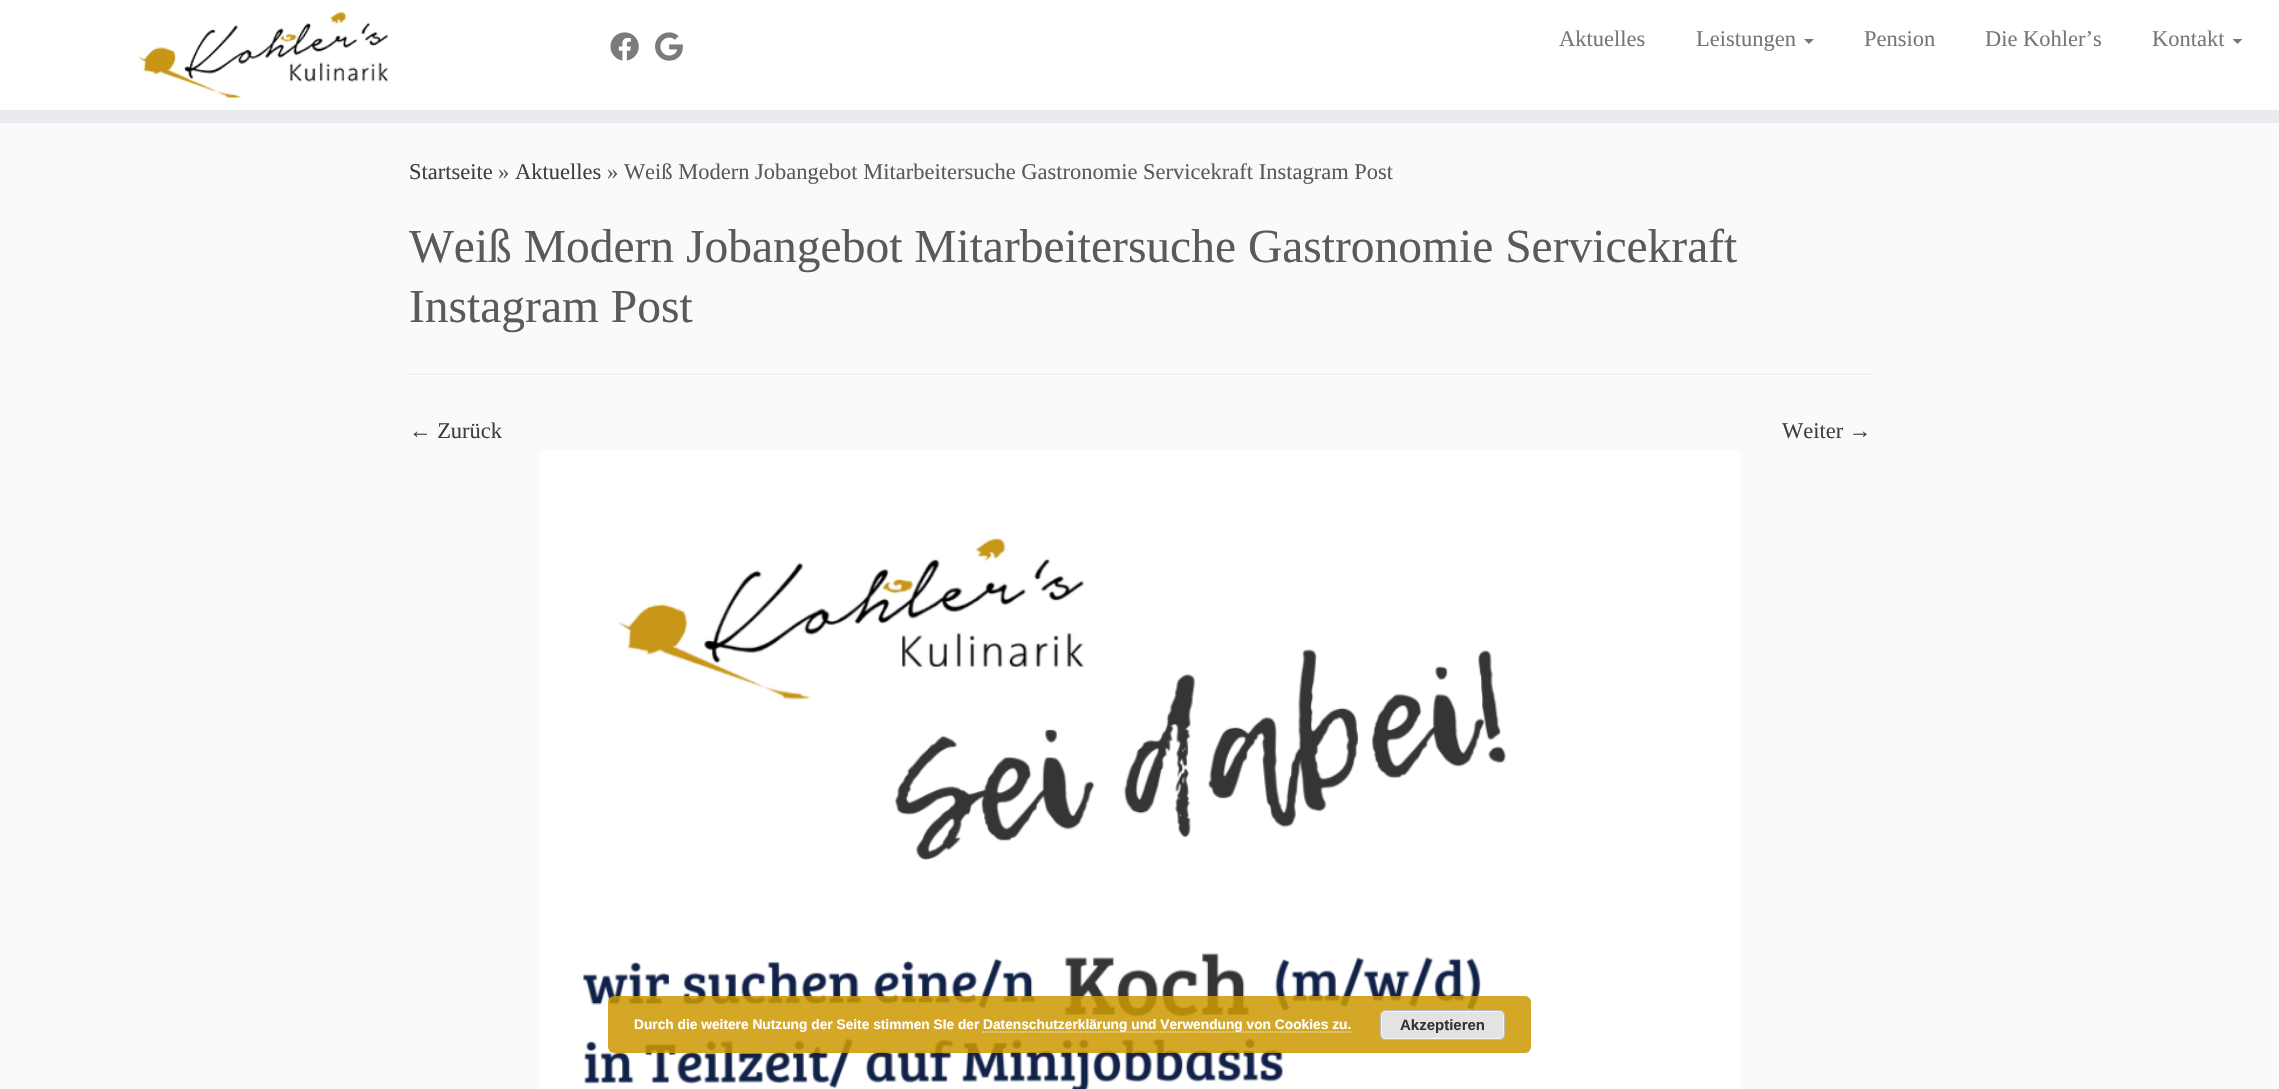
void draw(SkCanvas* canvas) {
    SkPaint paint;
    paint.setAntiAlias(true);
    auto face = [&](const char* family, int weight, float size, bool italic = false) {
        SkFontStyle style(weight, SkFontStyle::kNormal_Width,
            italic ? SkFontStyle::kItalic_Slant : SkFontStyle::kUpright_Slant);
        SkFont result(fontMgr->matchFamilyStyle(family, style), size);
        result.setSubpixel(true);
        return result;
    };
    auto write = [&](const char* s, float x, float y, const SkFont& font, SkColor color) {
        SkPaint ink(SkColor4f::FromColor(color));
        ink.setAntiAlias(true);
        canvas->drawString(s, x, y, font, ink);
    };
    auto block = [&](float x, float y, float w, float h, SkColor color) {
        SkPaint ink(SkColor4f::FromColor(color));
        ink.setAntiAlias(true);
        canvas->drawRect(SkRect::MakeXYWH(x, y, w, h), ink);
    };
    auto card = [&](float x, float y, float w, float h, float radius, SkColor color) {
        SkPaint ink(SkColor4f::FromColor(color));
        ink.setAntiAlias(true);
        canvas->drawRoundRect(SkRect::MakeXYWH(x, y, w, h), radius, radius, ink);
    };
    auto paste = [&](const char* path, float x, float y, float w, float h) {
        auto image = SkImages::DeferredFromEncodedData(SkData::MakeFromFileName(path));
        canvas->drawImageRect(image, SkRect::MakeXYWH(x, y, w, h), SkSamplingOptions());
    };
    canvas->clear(SkColorSetRGB(250, 250, 250));
    block(0, 0, 2279, 110, SK_ColorWHITE);
    block(0, 110, 2279, 13, SkColorSetRGB(233, 234, 238));
    paste("pic1.png", 138, 12, 250, 86);
    paste("pic2.png", 610, 32, 29, 29);
    paste("pic3.png", 655, 32, 28, 29);
    auto kFont1 = face("Liberation Serif", 400, 22.5f);
    write("Aktuelles", 1559, 46, kFont1, SkColorSetRGB(119, 119, 119));
    write("Leistungen", 1696, 46, kFont1, SkColorSetRGB(119, 119, 119));
    paint.setColor(SkColorSetRGB(119, 119, 119));
    canvas->drawPath(SkPathBuilder().moveTo(1804, 39).lineTo(1814, 39).lineTo(1809, 44).close().detach(), paint);
    write("Pension", 1864, 46, kFont1, SkColorSetRGB(119, 119, 119));
    write("Die Kohler’s", 1985, 46, kFont1, SkColorSetRGB(119, 119, 119));
    write("Kontakt", 2152, 46, kFont1, SkColorSetRGB(119, 119, 119));
    canvas->drawPath(SkPathBuilder().moveTo(2232.5f, 39).lineTo(2242.5f, 39).lineTo(2237.5f, 44).close().detach(), paint);
    write("Startseite", 409, 179, kFont1, SkColorSetRGB(57, 65, 67));
    write("»", 498, 179, kFont1, SkColorSetRGB(90, 90, 90));
    write("Aktuelles", 515, 179, kFont1, SkColorSetRGB(57, 65, 67));
    write("» Weiß Modern Jobangebot Mitarbeitersuche Gastronomie Servicekraft Instagram Post", 607, 179, kFont1, SkColorSetRGB(90, 90, 90));
    auto kFont2 = face("Liberation Serif", 400, 47.5f);
    write("Weiß Modern Jobangebot Mitarbeitersuche Gastronomie Servicekraft", 409, 262, kFont2, SkColorSetRGB(90, 90, 90));
    write("Instagram Post", 409, 322, kFont2, SkColorSetRGB(90, 90, 90));
    block(409, 374, 1462, 1, SkColorSetRGB(238, 238, 238));
    block(409, 375, 1462, 1, SK_ColorWHITE);
    write("← Zurück", 409, 438, kFont1, SkColorSetRGB(57, 65, 67));
    write("Weiter →", 1782, 438, kFont1, SkColorSetRGB(57, 65, 67));
    paste("pic4.png", 540, 450, 1200, 639);
    card(608, 996, 923, 57, 6, SkColorSetARGB(217, 204, 153, 0));
    auto kFont3 = face("Liberation Sans", 700, 13.75f);
    write("Durch die weitere Nutzung der Seite stimmen SIe der", 634, 1029, kFont3, SK_ColorWHITE);
    paint.setStyle(SkPaint::kStroke_Style);
    paint.setStrokeWidth(1.2f);
    paint.setColor(SK_ColorWHITE);
    paint.setPathEffect(SkDashPathEffect::Make({{1.25f, 1.25f}}, 0));
    canvas->drawPath(SkPathBuilder().moveTo(982.5f, 1032).lineTo(1351, 1032).detach(), paint);
    paint.setPathEffect(nullptr);
    write("Datenschutzerklärung und Verwendung von Cookies zu.", 983, 1029, kFont3, SK_ColorWHITE);
    card(1380, 1010, 125, 30, 6, SkColorSetRGB(227, 227, 227));
    paint.setStrokeWidth(1);
    paint.setColor(SkColorSetRGB(246, 246, 246));
    canvas->drawRoundRect(SkRect::MakeXYWH(1381.5f, 1011.5f, 122, 27), 4.5f, 4.5f, paint);
    paint.setColor(SkColorSetRGB(187, 187, 187));
    canvas->drawRoundRect(SkRect::MakeXYWH(1380.5f, 1010.5f, 124, 29), 5.5f, 5.5f, paint);
    auto kFont4 = face("Liberation Sans", 700, 15);
    write("Akzeptieren", 1400, 1030, kFont4, SkColorSetRGB(51, 51, 51));
}
